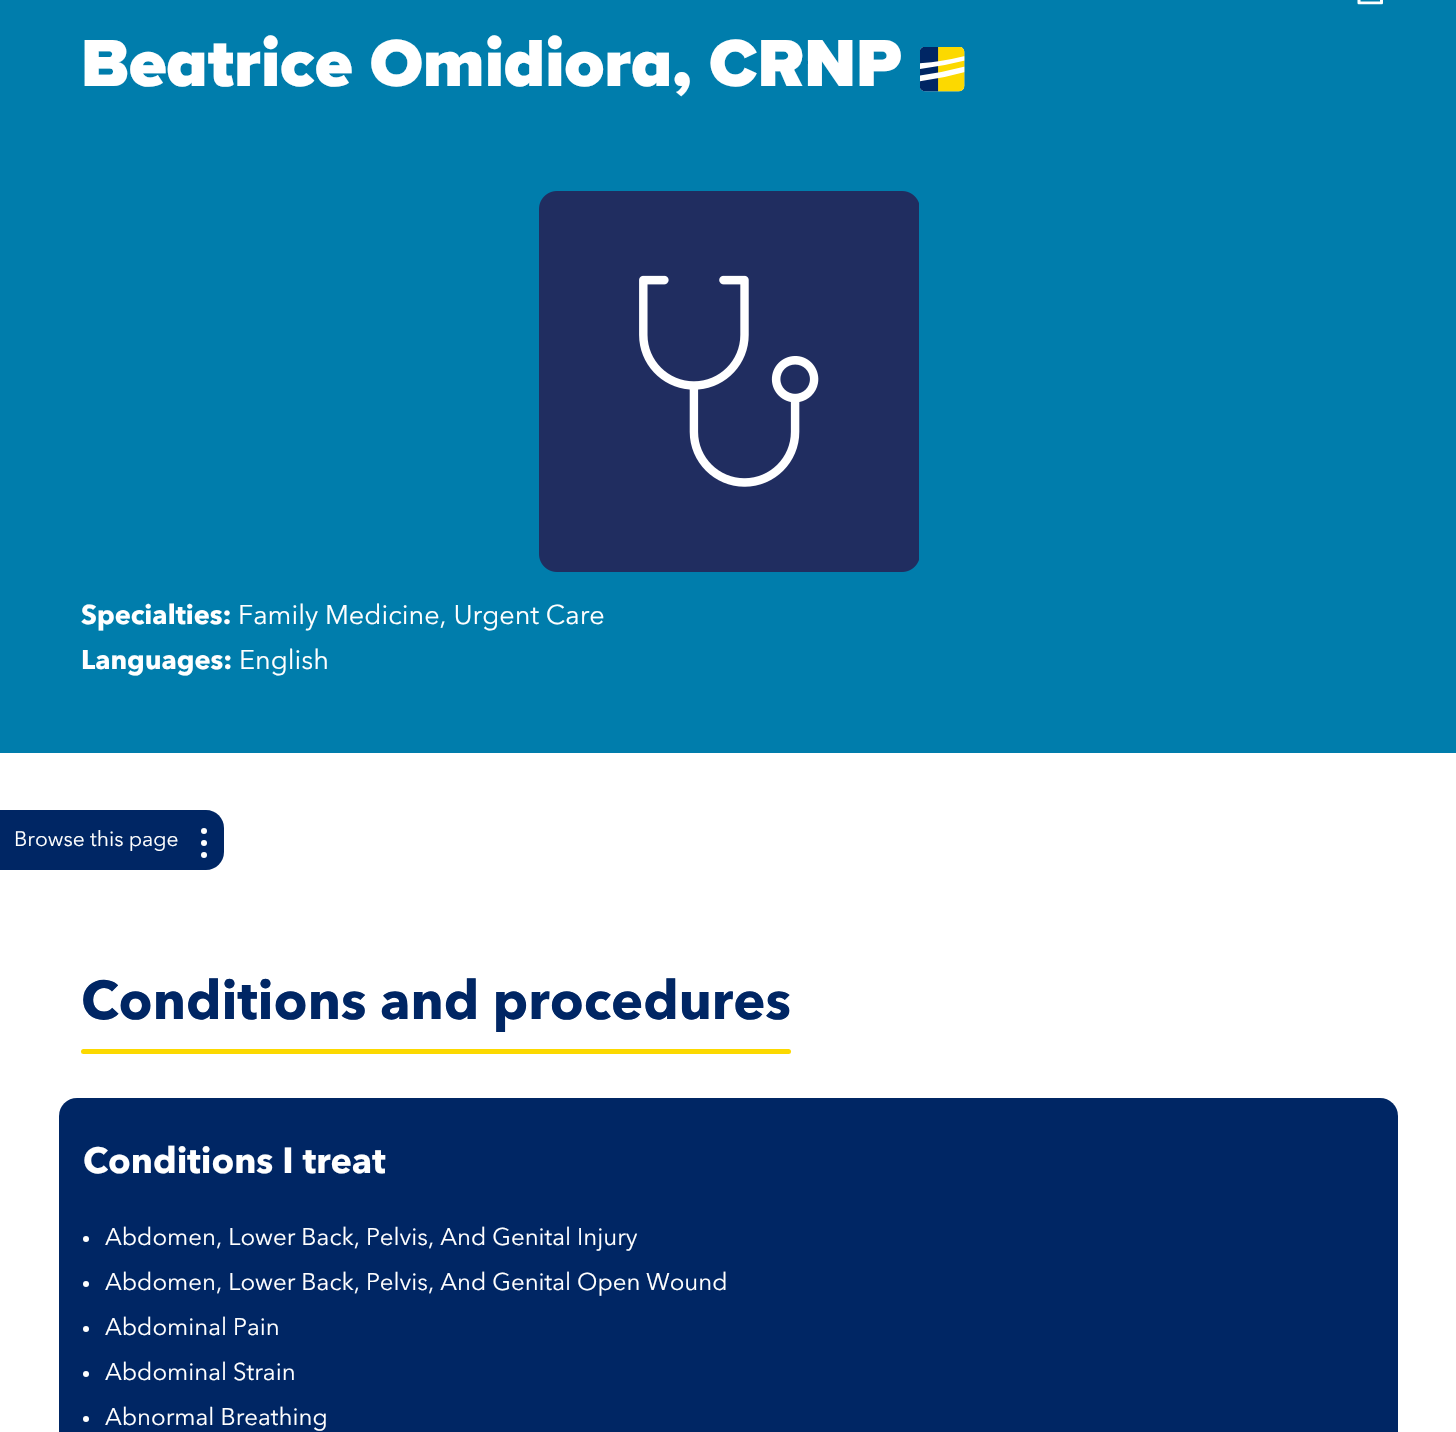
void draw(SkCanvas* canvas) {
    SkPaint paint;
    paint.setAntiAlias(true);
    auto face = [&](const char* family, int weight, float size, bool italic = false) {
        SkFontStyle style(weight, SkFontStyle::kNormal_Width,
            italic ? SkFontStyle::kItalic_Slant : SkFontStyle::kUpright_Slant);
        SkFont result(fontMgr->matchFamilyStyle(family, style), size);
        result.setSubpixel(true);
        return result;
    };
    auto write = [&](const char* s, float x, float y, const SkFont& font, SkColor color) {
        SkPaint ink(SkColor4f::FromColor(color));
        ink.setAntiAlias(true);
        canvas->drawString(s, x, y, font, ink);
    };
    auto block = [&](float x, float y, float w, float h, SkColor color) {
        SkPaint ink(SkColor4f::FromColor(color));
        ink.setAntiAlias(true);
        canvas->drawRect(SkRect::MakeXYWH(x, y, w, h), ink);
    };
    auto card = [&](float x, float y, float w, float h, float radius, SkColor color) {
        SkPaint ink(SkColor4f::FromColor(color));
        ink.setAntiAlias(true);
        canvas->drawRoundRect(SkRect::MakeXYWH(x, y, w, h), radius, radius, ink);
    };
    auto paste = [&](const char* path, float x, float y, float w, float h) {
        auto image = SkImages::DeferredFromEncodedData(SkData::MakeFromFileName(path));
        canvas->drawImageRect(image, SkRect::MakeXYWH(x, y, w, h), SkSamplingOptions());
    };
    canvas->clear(SK_ColorWHITE);
    block(0, 0, 1456, 753, SkColorSetRGB(0, 125, 172));
    paste("pic1.png", 1357, 0, 26, 5);
    auto kFont1 = face("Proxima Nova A", 900, 69);
    write("Beatrice Omidiora, CRNP", 81, 86, kFont1, SK_ColorWHITE);
    paste("pic2.png", 920, 47, 45, 45);
    paste("pic3.png", 539, 191, 380, 381);
    auto kFont2 = face("Avenir Next", 700, 27);
    write("Specialties:", 81, 624, kFont2, SK_ColorWHITE);
    auto kFont3 = face("Avenir Next", 400, 27);
    write("Family Medicine, Urgent Care", 238, 624, kFont3, SK_ColorWHITE);
    write("Languages:", 81, 669, kFont2, SK_ColorWHITE);
    write("English", 239, 669, kFont3, SK_ColorWHITE);
    paint.setColor(SkColorSetRGB(0, 38, 100));
    canvas->drawPath(SkPathBuilder().moveTo(0, 810).lineTo(206, 810).cubicTo(216, 810, 224, 818, 224, 828).lineTo(224, 852).cubicTo(224, 862, 216, 870, 206, 870).lineTo(0, 870).close().detach(), paint);
    auto kFont4 = face("Avenir Next", 400, 21);
    write("Browse this page", 14, 846, kFont4, SK_ColorWHITE);
    paint.setColor(SK_ColorWHITE);
    canvas->drawCircle(204, 855, 3, paint);
    canvas->drawCircle(204, 843, 3, paint);
    canvas->drawCircle(204, 831, 3, paint);
    auto kFont5 = face("Avenir Next", 700, 54);
    write("Conditions and procedures", 81, 1019, kFont5, SkColorSetRGB(0, 38, 100));
    card(81, 1049, 710, 5, 2.5f, SkColorSetRGB(252, 217, 0));
    card(59, 1098, 1339, 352, 18, SkColorSetRGB(0, 38, 100));
    auto kFont6 = face("Avenir Next", 700, 36);
    write("Conditions I treat", 83, 1173, kFont6, SK_ColorWHITE);
    canvas->drawCircle(86, 1239, 3, paint);
    auto kFont7 = face("Avenir Next", 400, 24);
    write("Abdomen, Lower Back, Pelvis, And Genital Injury", 105, 1245, kFont7, SK_ColorWHITE);
    canvas->drawCircle(86, 1284, 3, paint);
    write("Abdomen, Lower Back, Pelvis, And Genital Open Wound", 105, 1290, kFont7, SK_ColorWHITE);
    canvas->drawCircle(86, 1329, 3, paint);
    write("Abdominal Pain", 105, 1335, kFont7, SK_ColorWHITE);
    canvas->drawCircle(86, 1374, 3, paint);
    write("Abdominal Strain", 105, 1380, kFont7, SK_ColorWHITE);
    canvas->drawCircle(86, 1419, 3, paint);
    write("Abnormal Breathing", 105, 1425, kFont7, SK_ColorWHITE);
}
